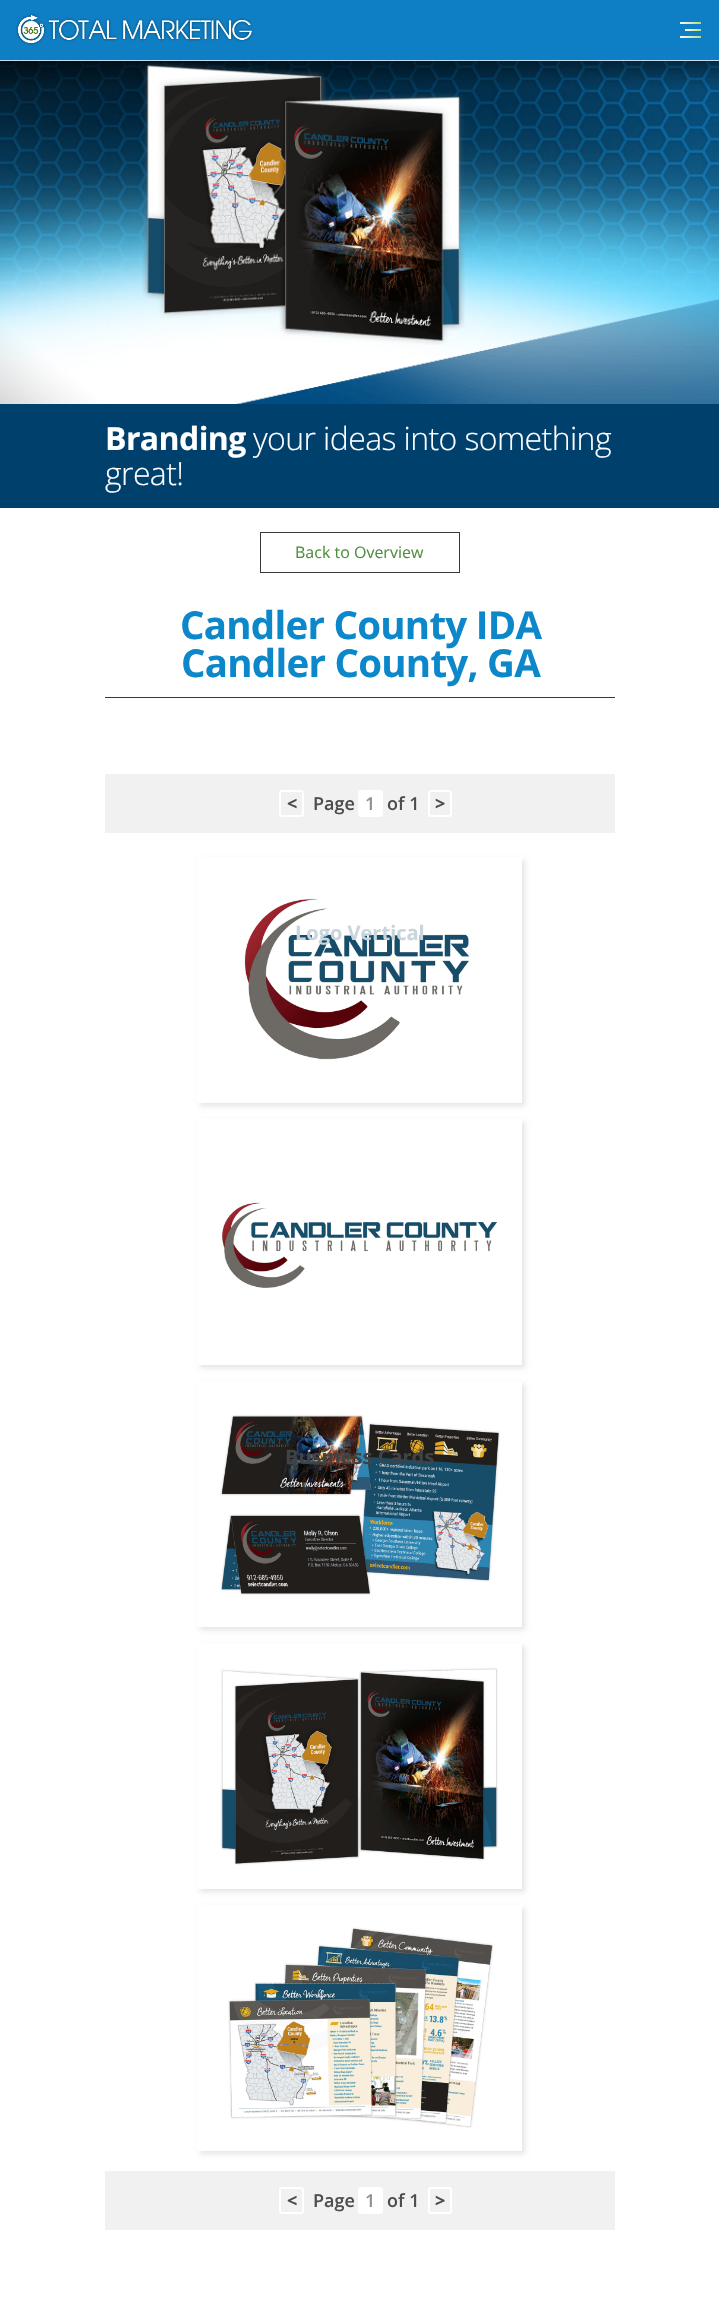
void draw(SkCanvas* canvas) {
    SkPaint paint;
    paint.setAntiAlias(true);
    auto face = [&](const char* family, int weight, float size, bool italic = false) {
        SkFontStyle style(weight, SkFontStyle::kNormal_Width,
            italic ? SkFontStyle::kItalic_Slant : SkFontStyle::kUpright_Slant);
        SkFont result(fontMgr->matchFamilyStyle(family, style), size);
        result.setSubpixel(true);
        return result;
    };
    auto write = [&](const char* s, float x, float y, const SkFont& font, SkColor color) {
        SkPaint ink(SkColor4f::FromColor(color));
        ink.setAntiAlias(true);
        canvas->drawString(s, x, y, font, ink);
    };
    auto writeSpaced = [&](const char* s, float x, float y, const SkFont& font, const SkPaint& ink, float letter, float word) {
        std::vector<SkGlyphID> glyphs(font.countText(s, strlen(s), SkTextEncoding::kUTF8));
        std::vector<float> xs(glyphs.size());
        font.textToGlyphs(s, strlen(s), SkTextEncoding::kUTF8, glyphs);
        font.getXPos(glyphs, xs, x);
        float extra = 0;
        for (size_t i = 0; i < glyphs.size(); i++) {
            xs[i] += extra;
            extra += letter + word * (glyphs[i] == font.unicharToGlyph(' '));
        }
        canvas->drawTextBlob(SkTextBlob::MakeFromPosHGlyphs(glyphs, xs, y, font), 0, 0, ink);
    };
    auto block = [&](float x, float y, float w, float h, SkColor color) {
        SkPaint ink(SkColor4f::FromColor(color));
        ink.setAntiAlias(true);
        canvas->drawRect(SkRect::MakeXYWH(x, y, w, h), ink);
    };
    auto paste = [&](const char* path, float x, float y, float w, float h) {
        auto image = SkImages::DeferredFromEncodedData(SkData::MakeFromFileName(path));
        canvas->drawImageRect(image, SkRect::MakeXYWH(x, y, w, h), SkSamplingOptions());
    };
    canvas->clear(SK_ColorWHITE);
    block(0, 0, 719, 60, SkColorSetRGB(15, 127, 197));
    block(0, 60, 719, 1, SkColorSetRGB(195, 223, 241));
    paste("pic1.png", 16, 13, 238, 33);
    {
        const SkColor colors[] = {SK_ColorWHITE, SkColorSetRGB(181, 214, 118)};
        const float stops[] = {0, 1};
        const SkPoint ends[] = {{685, 17}, {696, 29}};
        paint.setShader(SkGradientShader::MakeLinear(ends, colors, stops, 2, SkTileMode::kClamp));
        paint.setAlpha(255);
    }
    canvas->drawRect(SkRect::MakeXYWH(680, 22, 21, 2), paint);
    {
        const SkColor colors[] = {SK_ColorWHITE, SkColorSetRGB(181, 214, 118)};
        const float stops[] = {0, 1};
        const SkPoint ends[] = {{689, 26}, {698, 35}};
        paint.setShader(SkGradientShader::MakeLinear(ends, colors, stops, 2, SkTileMode::kClamp));
        paint.setAlpha(255);
    }
    canvas->drawRect(SkRect::MakeXYWH(685, 29, 16, 2), paint);
    {
        const SkColor colors[] = {SK_ColorWHITE, SkColorSetRGB(181, 214, 118)};
        const float stops[] = {0, 1};
        const SkPoint ends[] = {{685, 31}, {696, 43}};
        paint.setShader(SkGradientShader::MakeLinear(ends, colors, stops, 2, SkTileMode::kClamp));
        paint.setAlpha(255);
    }
    canvas->drawRect(SkRect::MakeXYWH(680, 36, 21, 2), paint);
    block(0, 404, 719, 104, SkColorSetRGB(0, 64, 109));
    paste("pic2.png", 0, 61, 719, 343);
    paste("pic4.png", 236, 299, 483, 105);
    paste("pic3.png", 142, 62, 323, 283);
    auto kFont1 = face("Open Sans", 700, 32);
    paint.setShader(nullptr);
    paint.setColor(SK_ColorWHITE);
    writeSpaced("Branding", 105, 450, kFont1, paint, -0.6f, 0);
    auto kFont2 = face("Open Sans", 300, 32);
    writeSpaced("your ideas into something", 253, 450, kFont2, paint, -0.6f, 0);
    writeSpaced("great!", 105, 485, kFont2, paint, -0.6f, 0);
    paint.setStyle(SkPaint::kStroke_Style);
    paint.setStrokeWidth(1);
    paint.setColor(SkColorSetRGB(56, 56, 56));
    canvas->drawRect(SkRect::MakeXYWH(260.5f, 532.5f, 199, 40), paint);
    auto kFont3 = face("Open Sans", 400, 16);
    write("Back to Overview", 295, 558, kFont3, SkColorSetRGB(78, 143, 64));
    auto kFont4 = face("Open Sans", 700, 38.5f);
    paint.setStyle(SkPaint::kFill_Style);
    paint.setColor(SkColorSetRGB(12, 135, 202));
    writeSpaced("Candler County IDA", 180, 639, kFont4, paint, -0.75f, 0);
    writeSpaced("Candler County, GA", 181, 677, kFont4, paint, -0.75f, 0);
    block(105, 697, 510, 1, SkColorSetRGB(56, 56, 56));
    block(105, 774, 510, 59, SkColorSetRGB(241, 241, 241));
    paint.setStyle(SkPaint::kStroke_Style);
    paint.setStrokeWidth(2);
    paint.setColor(SK_ColorWHITE);
    canvas->drawRoundRect(SkRect::MakeXYWH(280, 791, 23, 25), 2, 2, paint);
    auto kFont5 = face("Open Sans", 700, 18);
    write("<", 287, 810, kFont5, SkColorSetRGB(77, 77, 77));
    auto kFont6 = face("Open Sans", 600, 18);
    write("Page", 313, 810, kFont6, SkColorSetRGB(77, 77, 77));
    paint.setStyle(SkPaint::kFill_Style);
    canvas->drawRoundRect(SkRect::MakeXYWH(359, 791, 23, 25), 2, 2, paint);
    paint.setStyle(SkPaint::kStroke_Style);
    canvas->drawRoundRect(SkRect::MakeXYWH(359, 791, 23, 25), 2, 2, paint);
    write("1", 365, 810, kFont6, SkColorSetRGB(143, 145, 146));
    write("of 1", 387, 810, kFont6, SkColorSetRGB(77, 77, 77));
    canvas->drawRoundRect(SkRect::MakeXYWH(429, 791, 22, 25), 2, 2, paint);
    write(">", 435, 810, kFont5, SkColorSetRGB(77, 77, 77));
    canvas->save();
    canvas->clipPath(SkPathBuilder(SkPathFillType::kEvenOdd).moveTo(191, 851).lineTo(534, 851).lineTo(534, 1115).lineTo(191, 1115).close().moveTo(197, 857).lineTo(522, 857).lineTo(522, 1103).lineTo(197, 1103).close().detach(), true);
    paint.setStyle(SkPaint::kFill_Style);
    paint.setColor(SkColorSetARGB(26, 0, 0, 0));
    paint.setMaskFilter(SkMaskFilter::MakeBlur(kNormal_SkBlurStyle, 2.5f));
    canvas->drawRect(SkRect::MakeXYWH(200, 860, 325, 246), paint);
    paint.setMaskFilter(nullptr);
    canvas->restore();
    paste("pic5.png", 244, 898, 226, 162);
    auto kFont7 = face("Open Sans", 700, 20);
    write("Logo Vertical", 295, 940, kFont7, SkColorSetRGB(200, 213, 220));
    canvas->save();
    canvas->clipPath(SkPathBuilder(SkPathFillType::kEvenOdd).moveTo(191, 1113).lineTo(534, 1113).lineTo(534, 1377).lineTo(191, 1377).close().moveTo(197, 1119).lineTo(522, 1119).lineTo(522, 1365).lineTo(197, 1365).close().detach(), true);
    paint.setMaskFilter(SkMaskFilter::MakeBlur(kNormal_SkBlurStyle, 2.5f));
    canvas->drawRect(SkRect::MakeXYWH(200, 1122, 325, 246), paint);
    paint.setMaskFilter(nullptr);
    canvas->restore();
    paste("pic6.png", 222, 1202, 275, 86);
    canvas->save();
    canvas->clipPath(SkPathBuilder(SkPathFillType::kEvenOdd).moveTo(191, 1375).lineTo(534, 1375).lineTo(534, 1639).lineTo(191, 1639).close().moveTo(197, 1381).lineTo(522, 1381).lineTo(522, 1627).lineTo(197, 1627).close().detach(), true);
    paint.setMaskFilter(SkMaskFilter::MakeBlur(kNormal_SkBlurStyle, 2.5f));
    canvas->drawRect(SkRect::MakeXYWH(200, 1384, 325, 246), paint);
    paint.setMaskFilter(nullptr);
    canvas->restore();
    paste("pic7.png", 220, 1415, 280, 180);
    write("Business Cards", 285, 1464, kFont7, SkColorSetRGB(63, 67, 70));
    canvas->save();
    canvas->clipPath(SkPathBuilder(SkPathFillType::kEvenOdd).moveTo(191, 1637).lineTo(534, 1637).lineTo(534, 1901).lineTo(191, 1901).close().moveTo(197, 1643).lineTo(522, 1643).lineTo(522, 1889).lineTo(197, 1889).close().detach(), true);
    paint.setMaskFilter(SkMaskFilter::MakeBlur(kNormal_SkBlurStyle, 2.5f));
    canvas->drawRect(SkRect::MakeXYWH(200, 1646, 325, 246), paint);
    paint.setMaskFilter(nullptr);
    canvas->restore();
    paste("pic8.png", 220, 1667, 278, 198);
    canvas->save();
    canvas->clipPath(SkPathBuilder(SkPathFillType::kEvenOdd).moveTo(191, 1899).lineTo(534, 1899).lineTo(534, 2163).lineTo(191, 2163).close().moveTo(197, 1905).lineTo(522, 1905).lineTo(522, 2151).lineTo(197, 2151).close().detach(), true);
    paint.setMaskFilter(SkMaskFilter::MakeBlur(kNormal_SkBlurStyle, 2.5f));
    canvas->drawRect(SkRect::MakeXYWH(200, 1908, 325, 246), paint);
    paint.setMaskFilter(nullptr);
    canvas->restore();
    paste("pic9.png", 228, 1927, 266, 201);
    block(105, 2171, 510, 59, SkColorSetRGB(241, 241, 241));
    paint.setStyle(SkPaint::kStroke_Style);
    paint.setColor(SK_ColorWHITE);
    canvas->drawRoundRect(SkRect::MakeXYWH(280, 2188, 23, 25), 2, 2, paint);
    write("<", 287, 2207, kFont5, SkColorSetRGB(77, 77, 77));
    write("Page", 313, 2207, kFont6, SkColorSetRGB(77, 77, 77));
    paint.setStyle(SkPaint::kFill_Style);
    canvas->drawRoundRect(SkRect::MakeXYWH(359, 2188, 23, 25), 2, 2, paint);
    paint.setStyle(SkPaint::kStroke_Style);
    canvas->drawRoundRect(SkRect::MakeXYWH(359, 2188, 23, 25), 2, 2, paint);
    write("1", 365, 2207, kFont6, SkColorSetRGB(143, 145, 146));
    write("of 1", 387, 2207, kFont6, SkColorSetRGB(77, 77, 77));
    canvas->drawRoundRect(SkRect::MakeXYWH(429, 2188, 22, 25), 2, 2, paint);
    write(">", 435, 2207, kFont5, SkColorSetRGB(77, 77, 77));
}
